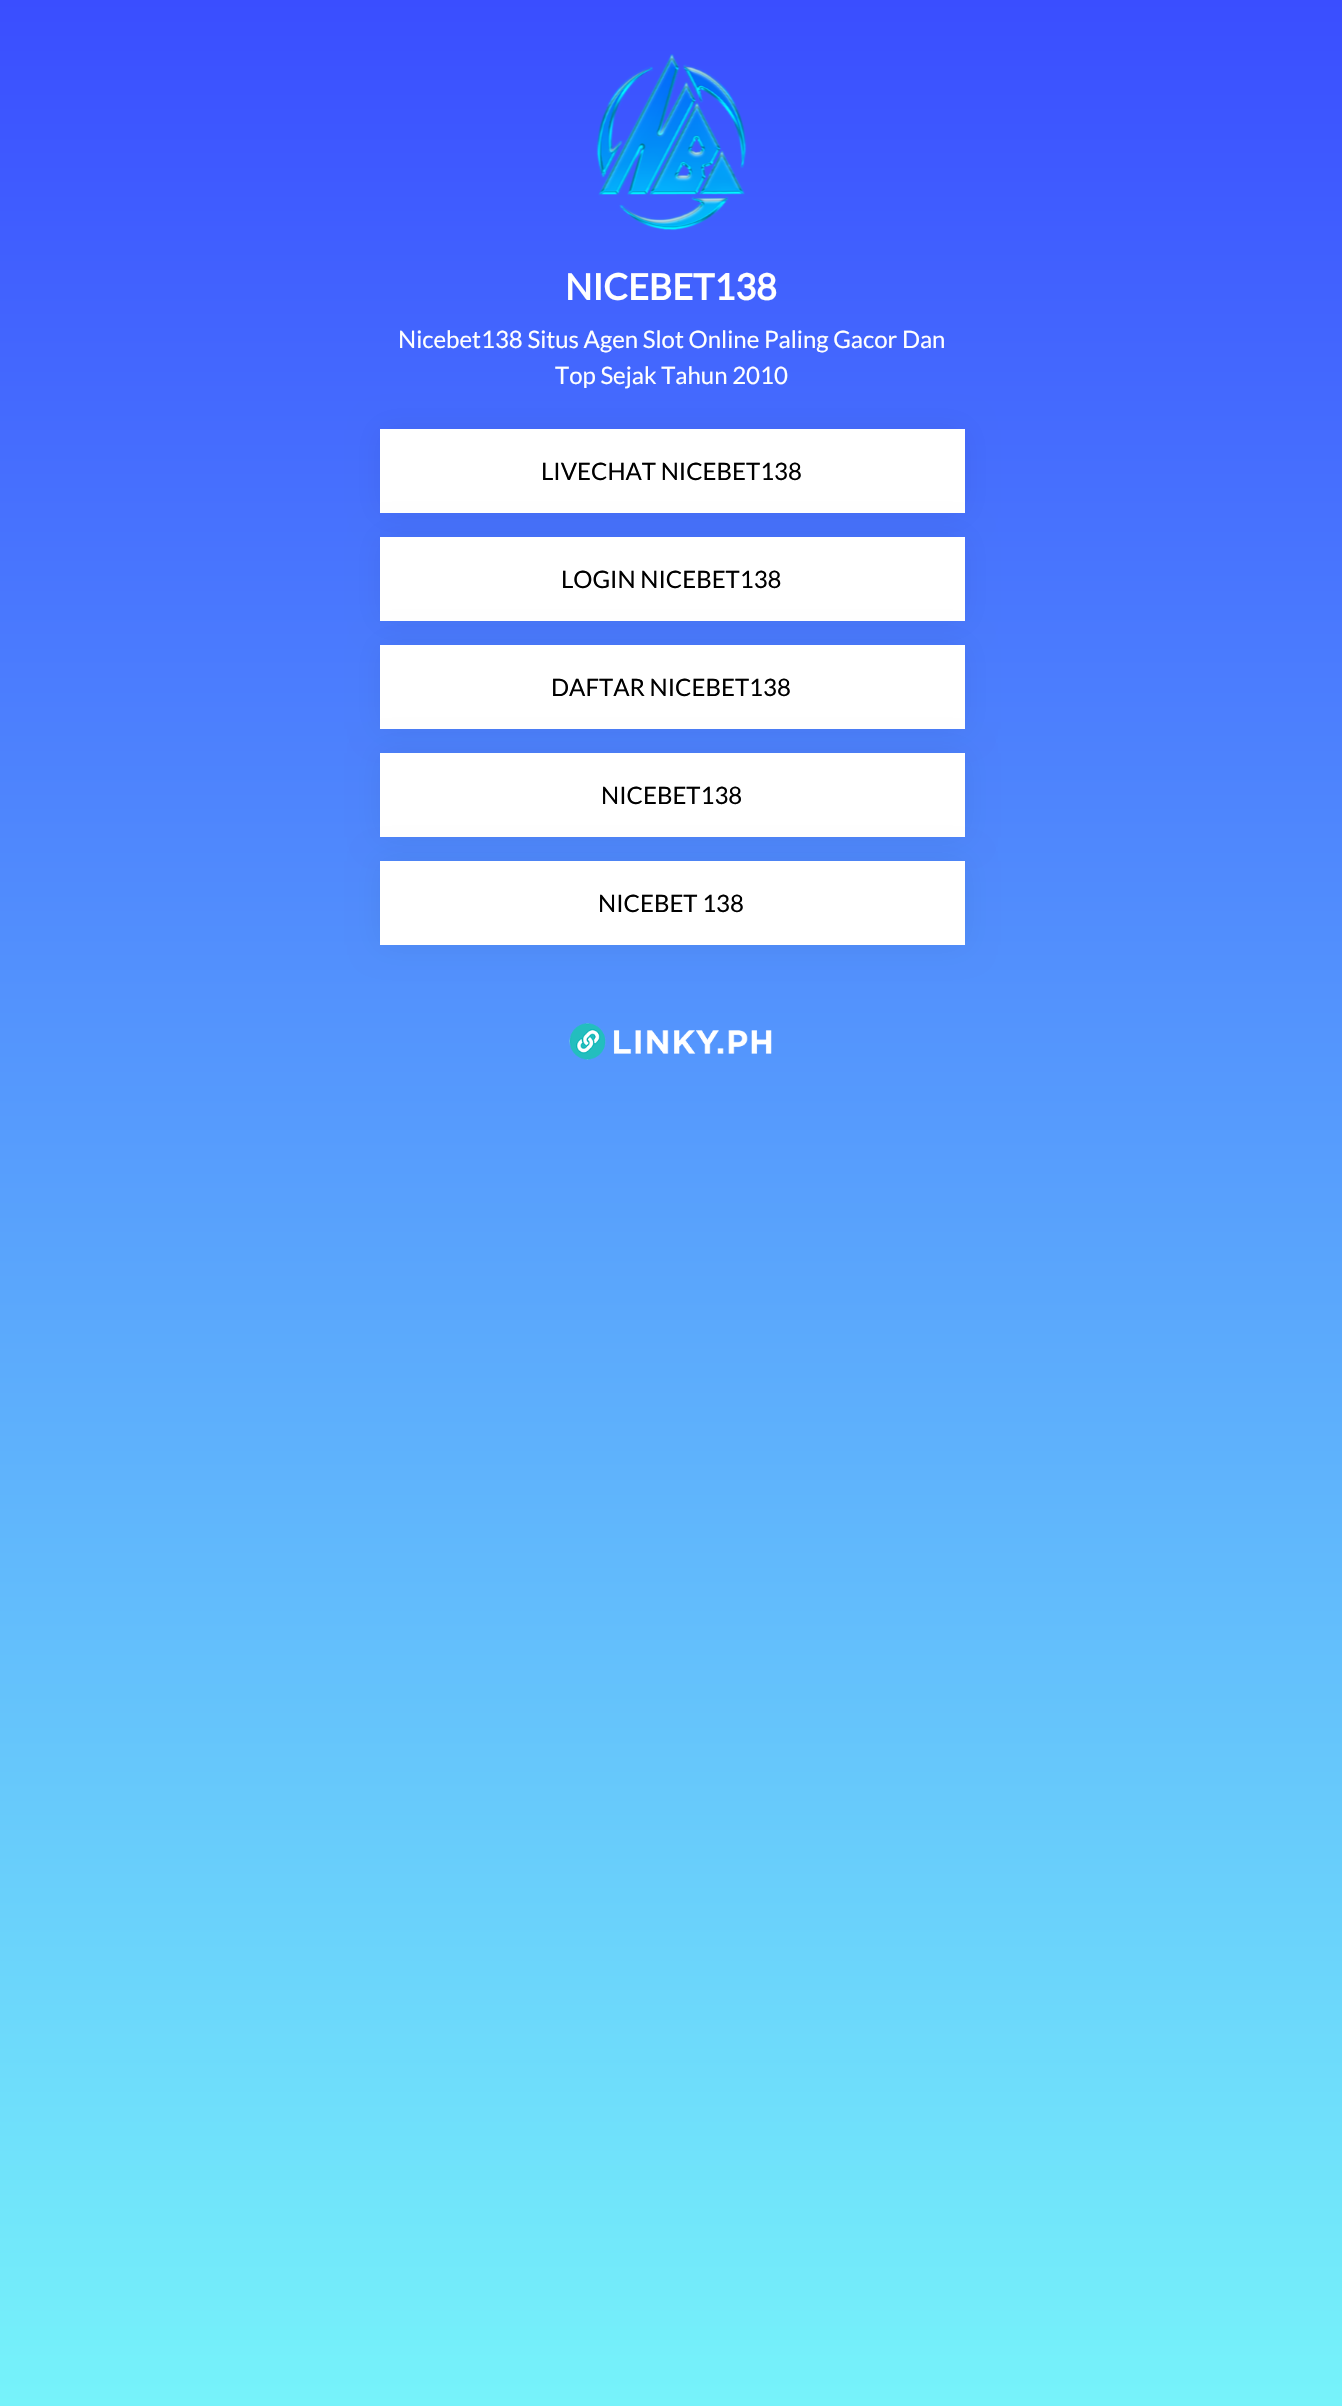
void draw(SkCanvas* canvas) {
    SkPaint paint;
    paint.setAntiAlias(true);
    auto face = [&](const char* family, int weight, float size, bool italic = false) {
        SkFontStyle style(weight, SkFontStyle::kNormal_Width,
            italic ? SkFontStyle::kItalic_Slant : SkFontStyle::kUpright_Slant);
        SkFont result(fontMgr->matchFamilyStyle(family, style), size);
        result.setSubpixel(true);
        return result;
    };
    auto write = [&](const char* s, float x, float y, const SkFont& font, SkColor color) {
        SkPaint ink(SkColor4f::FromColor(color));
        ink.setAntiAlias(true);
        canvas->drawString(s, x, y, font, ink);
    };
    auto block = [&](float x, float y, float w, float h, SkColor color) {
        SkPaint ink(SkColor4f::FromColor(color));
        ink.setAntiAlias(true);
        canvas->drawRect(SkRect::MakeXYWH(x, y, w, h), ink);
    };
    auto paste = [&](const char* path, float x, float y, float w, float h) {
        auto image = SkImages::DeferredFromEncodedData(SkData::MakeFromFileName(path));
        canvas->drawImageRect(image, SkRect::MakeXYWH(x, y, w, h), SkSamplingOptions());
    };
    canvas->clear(SK_ColorWHITE);
    {
        const SkColor colors[] = {SkColorSetRGB(118, 243, 250), SkColorSetRGB(58, 78, 255)};
        const float stops[] = {0, 1};
        const SkPoint ends[] = {{671, 2406}, {671, 0}};
        paint.setShader(SkGradientShader::MakeLinear(ends, colors, stops, 2, SkTileMode::kClamp));
        paint.setAlpha(255);
    }
    canvas->drawRect(SkRect::MakeXYWH(0, 0, 1342, 2406), paint);
    paste("pic1.png", 596, 54, 151, 177);
    auto kFont1 = face("Lato", 700, 36);
    write("NICEBET138", 565, 300, kFont1, SK_ColorWHITE);
    auto kFont2 = face("Lato", 400, 24);
    write("Nicebet138 Situs Agen Slot Online Paling Gacor Dan", 398, 348, kFont2, SK_ColorWHITE);
    write("Top Sejak Tahun 2010", 555, 384, kFont2, SK_ColorWHITE);
    paint.setShader(nullptr);
    paint.setColor(SkColorSetARGB(15, 0, 0, 0));
    paint.setMaskFilter(SkMaskFilter::MakeBlur(kNormal_SkBlurStyle, 15));
    canvas->drawRect(SkRect::MakeXYWH(380, 429, 585, 84), paint);
    paint.setMaskFilter(nullptr);
    block(380, 429, 585, 84, SK_ColorWHITE);
    write("LIVECHAT NICEBET138", 541, 480, kFont2, SK_ColorBLACK);
    paint.setMaskFilter(SkMaskFilter::MakeBlur(kNormal_SkBlurStyle, 15));
    canvas->drawRect(SkRect::MakeXYWH(380, 537, 585, 84), paint);
    paint.setMaskFilter(nullptr);
    block(380, 537, 585, 84, SK_ColorWHITE);
    write("LOGIN NICEBET138", 561, 588, kFont2, SK_ColorBLACK);
    paint.setMaskFilter(SkMaskFilter::MakeBlur(kNormal_SkBlurStyle, 15));
    canvas->drawRect(SkRect::MakeXYWH(380, 645, 585, 84), paint);
    paint.setMaskFilter(nullptr);
    block(380, 645, 585, 84, SK_ColorWHITE);
    write("DAFTAR NICEBET138", 551, 696, kFont2, SK_ColorBLACK);
    paint.setMaskFilter(SkMaskFilter::MakeBlur(kNormal_SkBlurStyle, 15));
    canvas->drawRect(SkRect::MakeXYWH(380, 753, 585, 84), paint);
    paint.setMaskFilter(nullptr);
    block(380, 753, 585, 84, SK_ColorWHITE);
    write("NICEBET138", 601, 804, kFont2, SK_ColorBLACK);
    paint.setMaskFilter(SkMaskFilter::MakeBlur(kNormal_SkBlurStyle, 15));
    canvas->drawRect(SkRect::MakeXYWH(380, 861, 585, 84), paint);
    paint.setMaskFilter(nullptr);
    block(380, 861, 585, 84, SK_ColorWHITE);
    write("NICEBET 138", 598, 912, kFont2, SK_ColorBLACK);
    paste("pic2.png", 569, 1023, 203, 37);
}
